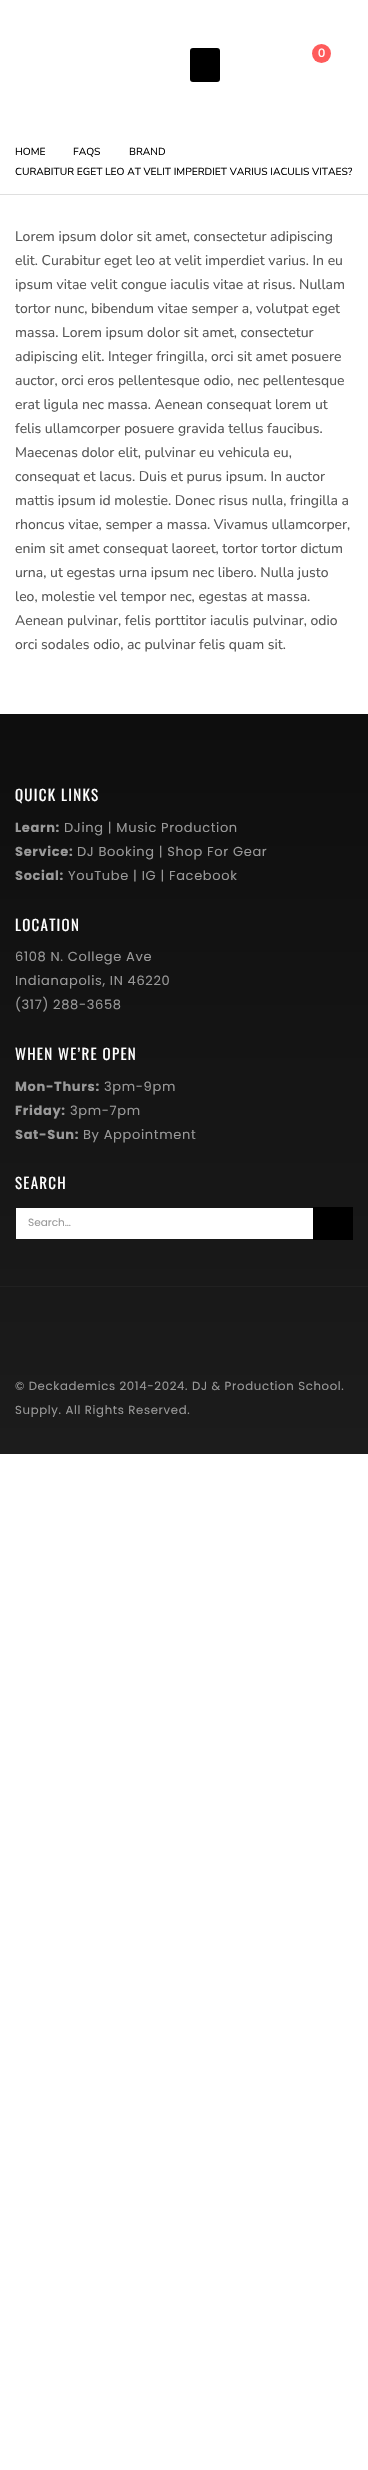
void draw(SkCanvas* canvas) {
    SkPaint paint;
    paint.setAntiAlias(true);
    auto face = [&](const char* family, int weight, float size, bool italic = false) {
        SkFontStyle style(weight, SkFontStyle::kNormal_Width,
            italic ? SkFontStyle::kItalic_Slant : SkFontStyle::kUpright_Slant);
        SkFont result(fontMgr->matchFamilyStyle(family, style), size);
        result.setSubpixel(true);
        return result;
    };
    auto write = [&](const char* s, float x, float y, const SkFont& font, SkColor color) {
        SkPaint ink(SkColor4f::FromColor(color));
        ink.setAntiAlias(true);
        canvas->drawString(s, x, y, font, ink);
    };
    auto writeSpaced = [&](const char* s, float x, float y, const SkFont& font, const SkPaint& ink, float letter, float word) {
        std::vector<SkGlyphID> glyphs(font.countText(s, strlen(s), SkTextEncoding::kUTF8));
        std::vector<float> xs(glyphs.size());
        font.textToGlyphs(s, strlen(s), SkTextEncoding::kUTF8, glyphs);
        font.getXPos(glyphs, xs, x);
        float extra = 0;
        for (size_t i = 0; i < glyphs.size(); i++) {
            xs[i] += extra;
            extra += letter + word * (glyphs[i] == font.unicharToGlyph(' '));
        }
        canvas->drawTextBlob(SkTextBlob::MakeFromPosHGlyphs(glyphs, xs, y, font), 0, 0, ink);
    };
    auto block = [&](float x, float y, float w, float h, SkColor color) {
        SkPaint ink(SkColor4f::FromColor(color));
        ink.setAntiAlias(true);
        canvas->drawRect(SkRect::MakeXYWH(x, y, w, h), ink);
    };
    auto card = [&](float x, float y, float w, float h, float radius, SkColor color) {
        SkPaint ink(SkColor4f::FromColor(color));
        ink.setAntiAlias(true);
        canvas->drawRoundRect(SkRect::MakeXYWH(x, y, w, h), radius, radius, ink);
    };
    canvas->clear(SK_ColorWHITE);
    card(190, 48, 30, 34, 3, SK_ColorBLACK);
    paint.setColor(SkColorSetRGB(255, 91, 91));
    canvas->drawCircle(321.5f, 53.5f, 9.5f, paint);
    auto kFont1 = face("Nunito Sans", 600, 12);
    write("0", 318, 57, kFont1, SK_ColorWHITE);
    block(0, 194, 368, 1, SkColorSetRGB(223, 223, 223));
    auto kFont2 = face("Nunito Sans", 400, 10.3f);
    write("HOME", 15, 155, kFont2, SK_ColorBLACK);
    write("FAQS", 73, 155, kFont2, SK_ColorBLACK);
    write("BRAND", 129, 155, kFont2, SK_ColorBLACK);
    write("CURABITUR EGET LEO AT VELIT IMPERDIET VARIUS IACULIS VITAES?", 15, 175, kFont2, SK_ColorBLACK);
    auto kFont3 = face("Nunito Sans", 400, 14);
    write("Lorem ipsum dolor sit amet, consectetur adipiscing", 15, 241, kFont3, SkColorSetRGB(85, 85, 85));
    write("elit. Curabitur eget leo at velit imperdiet varius. In eu", 15, 265, kFont3, SkColorSetRGB(85, 85, 85));
    write("ipsum vitae velit congue iaculis vitae at risus. Nullam", 15, 289, kFont3, SkColorSetRGB(85, 85, 85));
    write("tortor nunc, bibendum vitae semper a, volutpat eget", 15, 313, kFont3, SkColorSetRGB(85, 85, 85));
    write("massa. Lorem ipsum dolor sit amet, consectetur", 15, 337, kFont3, SkColorSetRGB(85, 85, 85));
    write("adipiscing elit. Integer fringilla, orci sit amet posuere", 15, 361, kFont3, SkColorSetRGB(85, 85, 85));
    write("auctor, orci eros pellentesque odio, nec pellentesque", 15, 385, kFont3, SkColorSetRGB(85, 85, 85));
    write("erat ligula nec massa. Aenean consequat lorem ut", 15, 409, kFont3, SkColorSetRGB(85, 85, 85));
    write("felis ullamcorper posuere gravida tellus faucibus.", 15, 433, kFont3, SkColorSetRGB(85, 85, 85));
    write("Maecenas dolor elit, pulvinar eu vehicula eu,", 15, 457, kFont3, SkColorSetRGB(85, 85, 85));
    write("consequat et lacus. Duis et purus ipsum. In auctor", 15, 481, kFont3, SkColorSetRGB(85, 85, 85));
    write("mattis ipsum id molestie. Donec risus nulla, fringilla a", 15, 505, kFont3, SkColorSetRGB(85, 85, 85));
    write("rhoncus vitae, semper a massa. Vivamus ullamcorper,", 15, 529, kFont3, SkColorSetRGB(85, 85, 85));
    write("enim sit amet consequat laoreet, tortor tortor dictum", 15, 553, kFont3, SkColorSetRGB(85, 85, 85));
    write("urna, ut egestas urna ipsum nec libero. Nulla justo", 15, 577, kFont3, SkColorSetRGB(85, 85, 85));
    write("leo, molestie vel tempor nec, egestas at massa.", 15, 601, kFont3, SkColorSetRGB(85, 85, 85));
    write("Aenean pulvinar, felis porttitor iaculis pulvinar, odio", 15, 625, kFont3, SkColorSetRGB(85, 85, 85));
    write("orci sodales odio, ac pulvinar felis quam sit.", 15, 649, kFont3, SkColorSetRGB(85, 85, 85));
    {
        const SkColor colors[] = {SkColorSetRGB(14, 14, 14), SkColorSetRGB(28, 28, 28)};
        const float stops[] = {0, 1};
        const SkPoint ends[] = {{184, 714}, {184, 1454}};
        paint.setShader(SkGradientShader::MakeLinear(ends, colors, stops, 2, SkTileMode::kClamp));
        paint.setAlpha(255);
    }
    canvas->drawRect(SkRect::MakeXYWH(0, 714, 368, 740), paint);
    block(0, 1286, 368, 1, SkColorSetRGB(33, 33, 33));
    auto kFont4 = face("Oswald", 400, 15);
    paint.setShader(nullptr);
    paint.setColor(SK_ColorWHITE);
    writeSpaced("QUICK LINKS", 15, 801, kFont4, paint, 1.25f, 0);
    auto kFont5 = face("Poppins", 700, 13);
    paint.setColor(SkColorSetRGB(153, 153, 153));
    writeSpaced("Learn:", 15, 832, kFont5, paint, 0.65f, 0);
    auto kFont6 = face("Poppins", 400, 13);
    writeSpaced("DJing | Music Production", 64, 832, kFont6, paint, 0.65f, 0);
    writeSpaced("Service:", 15, 856, kFont5, paint, 0.65f, 0);
    writeSpaced("DJ Booking | Shop For Gear", 77, 856, kFont6, paint, 0.65f, 0);
    writeSpaced("Social:", 15, 880, kFont5, paint, 0.65f, 0);
    writeSpaced("YouTube | IG | Facebook", 68, 880, kFont6, paint, 0.65f, 0);
    paint.setColor(SK_ColorWHITE);
    writeSpaced("LOCATION", 15, 931, kFont4, paint, 1.25f, 0);
    paint.setColor(SkColorSetRGB(153, 153, 153));
    writeSpaced("6108 N. College Ave", 15, 961, kFont6, paint, 0.65f, 0);
    writeSpaced("Indianapolis, IN 46220", 15, 985, kFont6, paint, 0.65f, 0);
    writeSpaced("(317) 288-3658", 15, 1009, kFont6, paint, 0.65f, 0);
    paint.setColor(SK_ColorWHITE);
    writeSpaced("WHEN WE’RE OPEN", 15, 1060, kFont4, paint, 1.25f, 0);
    paint.setColor(SkColorSetRGB(153, 153, 153));
    writeSpaced("Mon-Thurs:", 15, 1091, kFont5, paint, 0.65f, 0);
    writeSpaced("3pm-9pm", 104, 1091, kFont6, paint, 0.65f, 0);
    writeSpaced("Friday:", 15, 1115, kFont5, paint, 0.65f, 0);
    writeSpaced("3pm-7pm", 70, 1115, kFont6, paint, 0.65f, 0);
    writeSpaced("Sat-Sun:", 15, 1139, kFont5, paint, 0.65f, 0);
    writeSpaced("By Appointment", 83, 1139, kFont6, paint, 0.65f, 0);
    paint.setColor(SK_ColorWHITE);
    writeSpaced("SEARCH", 15, 1189, kFont4, paint, 1.25f, 0);
    block(16, 1208, 297, 31, SK_ColorWHITE);
    auto kFont7 = face("Poppins", 400, 10.5f);
    write("Search…", 28, 1226, kFont7, SkColorSetRGB(153, 153, 153));
    block(313, 1207, 40, 33, SK_ColorBLACK);
    auto kFont8 = face("Poppins", 400, 11.7f);
    paint.setColor(SkColorSetRGB(153, 153, 153));
    writeSpaced("© Deckademics 2014-2024. DJ & Production School.", 15, 1390, kFont8, paint, 0.65f, 0);
    writeSpaced("Supply. All Rights Reserved.", 15, 1414, kFont8, paint, 0.65f, 0);
}
